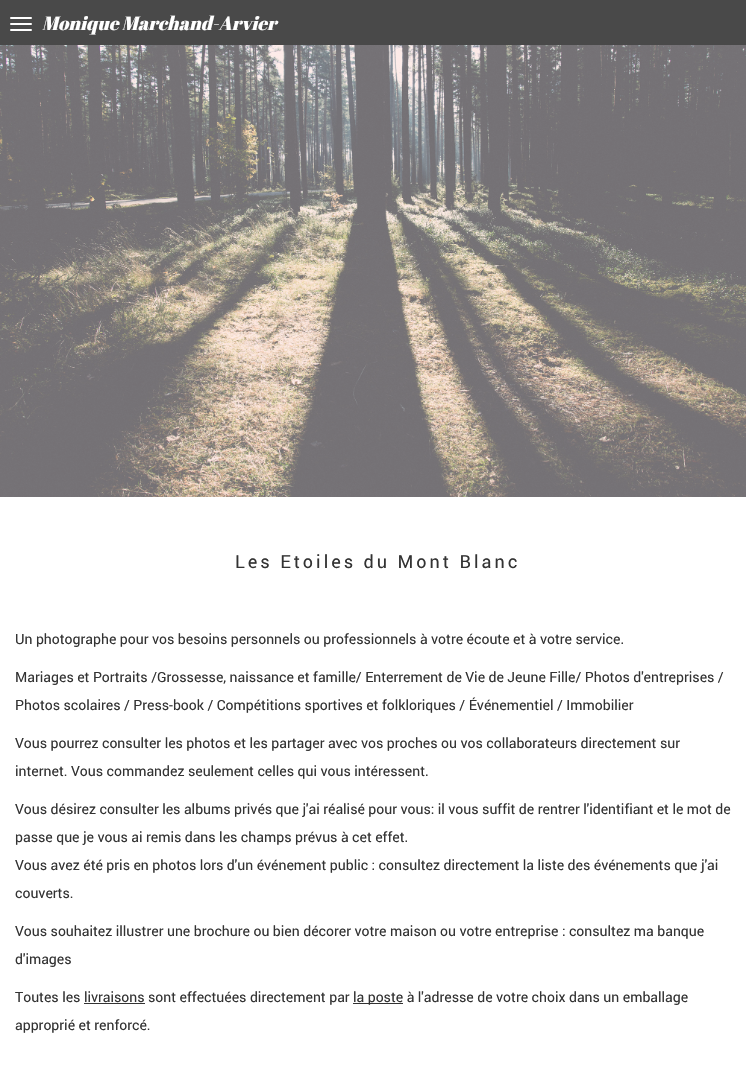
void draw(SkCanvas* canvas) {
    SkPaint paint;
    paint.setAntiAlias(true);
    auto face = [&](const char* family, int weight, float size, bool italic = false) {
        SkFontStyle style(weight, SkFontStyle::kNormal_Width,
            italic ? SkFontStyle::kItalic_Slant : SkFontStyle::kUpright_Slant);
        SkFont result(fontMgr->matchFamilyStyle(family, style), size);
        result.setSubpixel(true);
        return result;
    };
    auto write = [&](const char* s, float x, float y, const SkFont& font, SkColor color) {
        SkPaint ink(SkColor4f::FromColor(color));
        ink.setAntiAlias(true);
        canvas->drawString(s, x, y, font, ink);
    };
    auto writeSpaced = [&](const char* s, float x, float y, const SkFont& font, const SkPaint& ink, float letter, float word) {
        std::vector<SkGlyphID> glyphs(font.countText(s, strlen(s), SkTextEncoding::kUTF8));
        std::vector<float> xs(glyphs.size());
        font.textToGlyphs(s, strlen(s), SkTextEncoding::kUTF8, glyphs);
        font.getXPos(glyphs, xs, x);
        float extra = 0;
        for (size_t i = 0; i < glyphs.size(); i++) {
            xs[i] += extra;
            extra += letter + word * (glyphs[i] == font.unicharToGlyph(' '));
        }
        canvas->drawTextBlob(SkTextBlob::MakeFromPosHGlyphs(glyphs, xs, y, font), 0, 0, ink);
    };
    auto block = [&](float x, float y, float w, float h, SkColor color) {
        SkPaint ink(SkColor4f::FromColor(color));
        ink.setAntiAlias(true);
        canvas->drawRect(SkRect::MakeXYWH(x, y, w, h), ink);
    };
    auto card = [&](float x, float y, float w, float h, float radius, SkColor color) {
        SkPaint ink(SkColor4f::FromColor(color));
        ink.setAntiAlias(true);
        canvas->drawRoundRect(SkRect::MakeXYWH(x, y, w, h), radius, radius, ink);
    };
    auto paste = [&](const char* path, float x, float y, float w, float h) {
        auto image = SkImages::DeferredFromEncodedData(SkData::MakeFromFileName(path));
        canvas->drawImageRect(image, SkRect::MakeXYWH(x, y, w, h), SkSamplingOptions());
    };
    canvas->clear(SK_ColorWHITE);
    block(0, 0, 746, 45, SkColorSetRGB(73, 73, 73));
    card(10, 17, 22, 2, 1, SK_ColorWHITE);
    card(10, 23, 22, 2, 1, SK_ColorWHITE);
    card(10, 29, 22, 2, 1, SK_ColorWHITE);
    auto kFont1 = face("Abril Fatface", 400, 19, true);
    write("Monique Marchand-Arvier", 42, 30, kFont1, SK_ColorWHITE);
    paste("pic1.png", 0, 45, 746, 452);
    auto kFont2 = face("Roboto", 400, 18);
    paint.setColor(SkColorSetRGB(51, 51, 51));
    writeSpaced("Les Etoiles du Mont Blanc", 235, 568, kFont2, paint, 3, 0);
    auto kFont3 = face("Roboto", 400, 14);
    write("Un photographe pour vos besoins personnels ou professionnels à votre écoute et à votre service.", 15, 644, kFont3, SkColorSetRGB(51, 51, 51));
    write("Mariages et Portraits /Grossesse, naissance et famille/ Enterrement de Vie de Jeune Fille/ Photos d'entreprises /", 15, 682, kFont3, SkColorSetRGB(51, 51, 51));
    write("Photos scolaires / Press-book / Compétitions sportives et folkloriques / Événementiel / Immobilier", 15, 710, kFont3, SkColorSetRGB(51, 51, 51));
    write("Vous pourrez consulter les photos et les partager avec vos proches ou vos collaborateurs directement sur", 15, 748, kFont3, SkColorSetRGB(51, 51, 51));
    write("internet. Vous commandez seulement celles qui vous intéressent.", 15, 776, kFont3, SkColorSetRGB(51, 51, 51));
    write("Vous désirez consulter les albums privés que j'ai réalisé pour vous: il vous suffit de rentrer l'identifiant et le mot de", 15, 814, kFont3, SkColorSetRGB(51, 51, 51));
    write("passe que je vous ai remis dans les champs prévus à cet effet.", 15, 842, kFont3, SkColorSetRGB(51, 51, 51));
    write("Vous avez été pris en photos lors d'un événement public : consultez directement la liste des événements que j'ai", 15, 870, kFont3, SkColorSetRGB(51, 51, 51));
    write("couverts.", 15, 898, kFont3, SkColorSetRGB(51, 51, 51));
    write("Vous souhaitez illustrer une brochure ou bien décorer votre maison ou votre entreprise : consultez ma banque", 15, 936, kFont3, SkColorSetRGB(51, 51, 51));
    write("d'images", 15, 964, kFont3, SkColorSetRGB(51, 51, 51));
    write("Toutes les livraisons sont effectuées directement par", 15, 1002, kFont3, SkColorSetRGB(51, 51, 51));
    block(353, 1003, 50, 1, SkColorSetRGB(51, 51, 51));
    write("la poste à l'adresse de votre choix dans un emballage", 353, 1002, kFont3, SkColorSetRGB(51, 51, 51));
    block(84, 1003, 61, 1, SkColorSetRGB(51, 51, 51));
    write("approprié et renforcé.", 15, 1030, kFont3, SkColorSetRGB(51, 51, 51));
}
